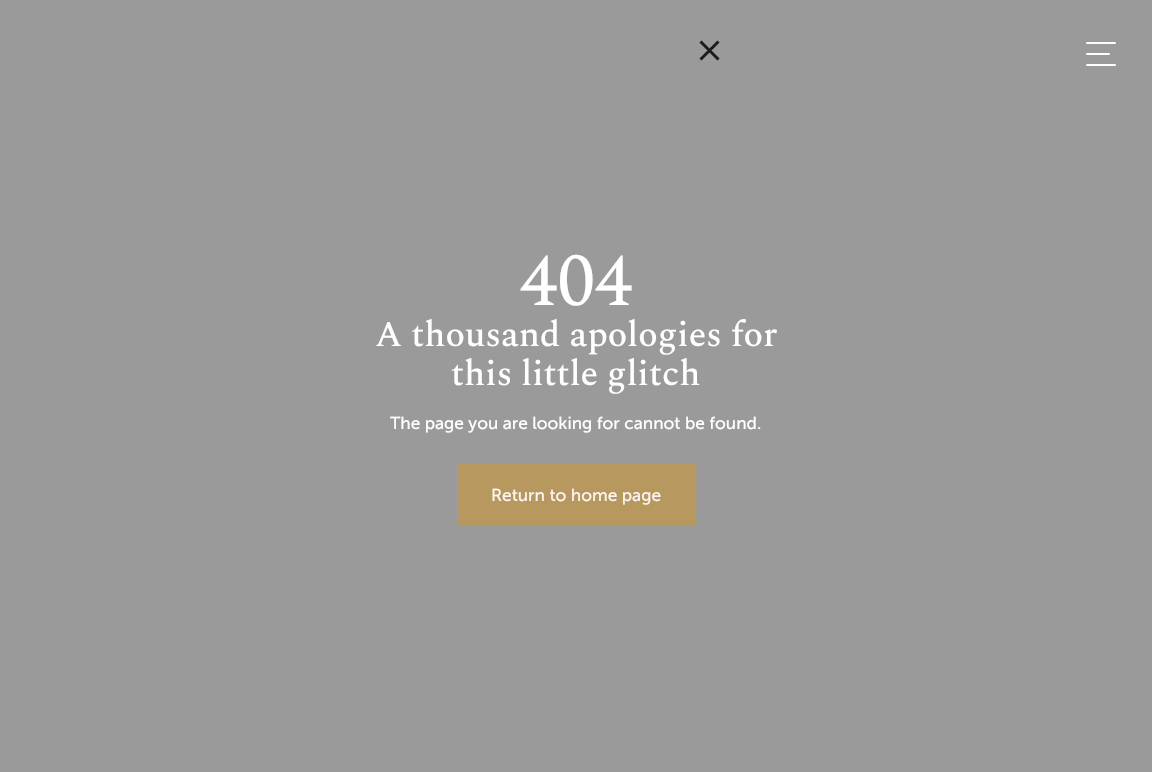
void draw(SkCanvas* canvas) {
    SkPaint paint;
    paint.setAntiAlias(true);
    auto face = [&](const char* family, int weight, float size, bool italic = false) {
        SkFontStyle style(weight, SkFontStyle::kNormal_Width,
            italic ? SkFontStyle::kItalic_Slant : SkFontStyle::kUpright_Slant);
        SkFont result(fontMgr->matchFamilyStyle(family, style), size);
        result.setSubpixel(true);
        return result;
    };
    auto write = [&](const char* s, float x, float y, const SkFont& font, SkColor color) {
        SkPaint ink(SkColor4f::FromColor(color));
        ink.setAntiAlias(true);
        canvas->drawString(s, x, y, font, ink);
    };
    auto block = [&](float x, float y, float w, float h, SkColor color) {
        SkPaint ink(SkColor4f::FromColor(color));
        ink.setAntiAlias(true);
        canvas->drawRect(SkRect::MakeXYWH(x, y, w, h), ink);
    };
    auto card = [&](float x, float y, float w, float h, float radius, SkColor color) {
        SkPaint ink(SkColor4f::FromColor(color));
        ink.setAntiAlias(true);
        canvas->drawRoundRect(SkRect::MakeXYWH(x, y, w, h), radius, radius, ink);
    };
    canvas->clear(SkColorSetRGB(154, 154, 154));
    paint.setStyle(SkPaint::kStroke_Style);
    paint.setStrokeWidth(3);
    paint.setColor(SkColorSetRGB(28, 28, 28));
    canvas->drawPath(SkPathBuilder().moveTo(700.5f, 41.5f).lineTo(718.5f, 59.5f).moveTo(718.5f, 41.5f).lineTo(700.5f, 59.5f).detach(), paint);
    card(1086, 42, 30, 2, 1, SK_ColorWHITE);
    card(1086, 53, 24, 2, 1, SK_ColorWHITE);
    card(1086, 64, 30, 2, 1, SK_ColorWHITE);
    auto kFont1 = face("Spectral", 400, 75);
    write("404", 520, 305, kFont1, SK_ColorWHITE);
    auto kFont2 = face("Spectral", 500, 36);
    write("A thousand apologies for", 375, 346, kFont2, SK_ColorWHITE);
    write("this little glitch", 451, 385, kFont2, SK_ColorWHITE);
    auto kFont3 = face("Museo Sans", 400, 17.25f);
    write("The page you are looking for cannot be found.", 390, 429, kFont3, SK_ColorWHITE);
    block(457, 464, 238, 62, SkColorSetRGB(183, 152, 95));
    write("Return to home page", 491, 501, kFont3, SkColorSetRGB(255, 245, 245));
}
